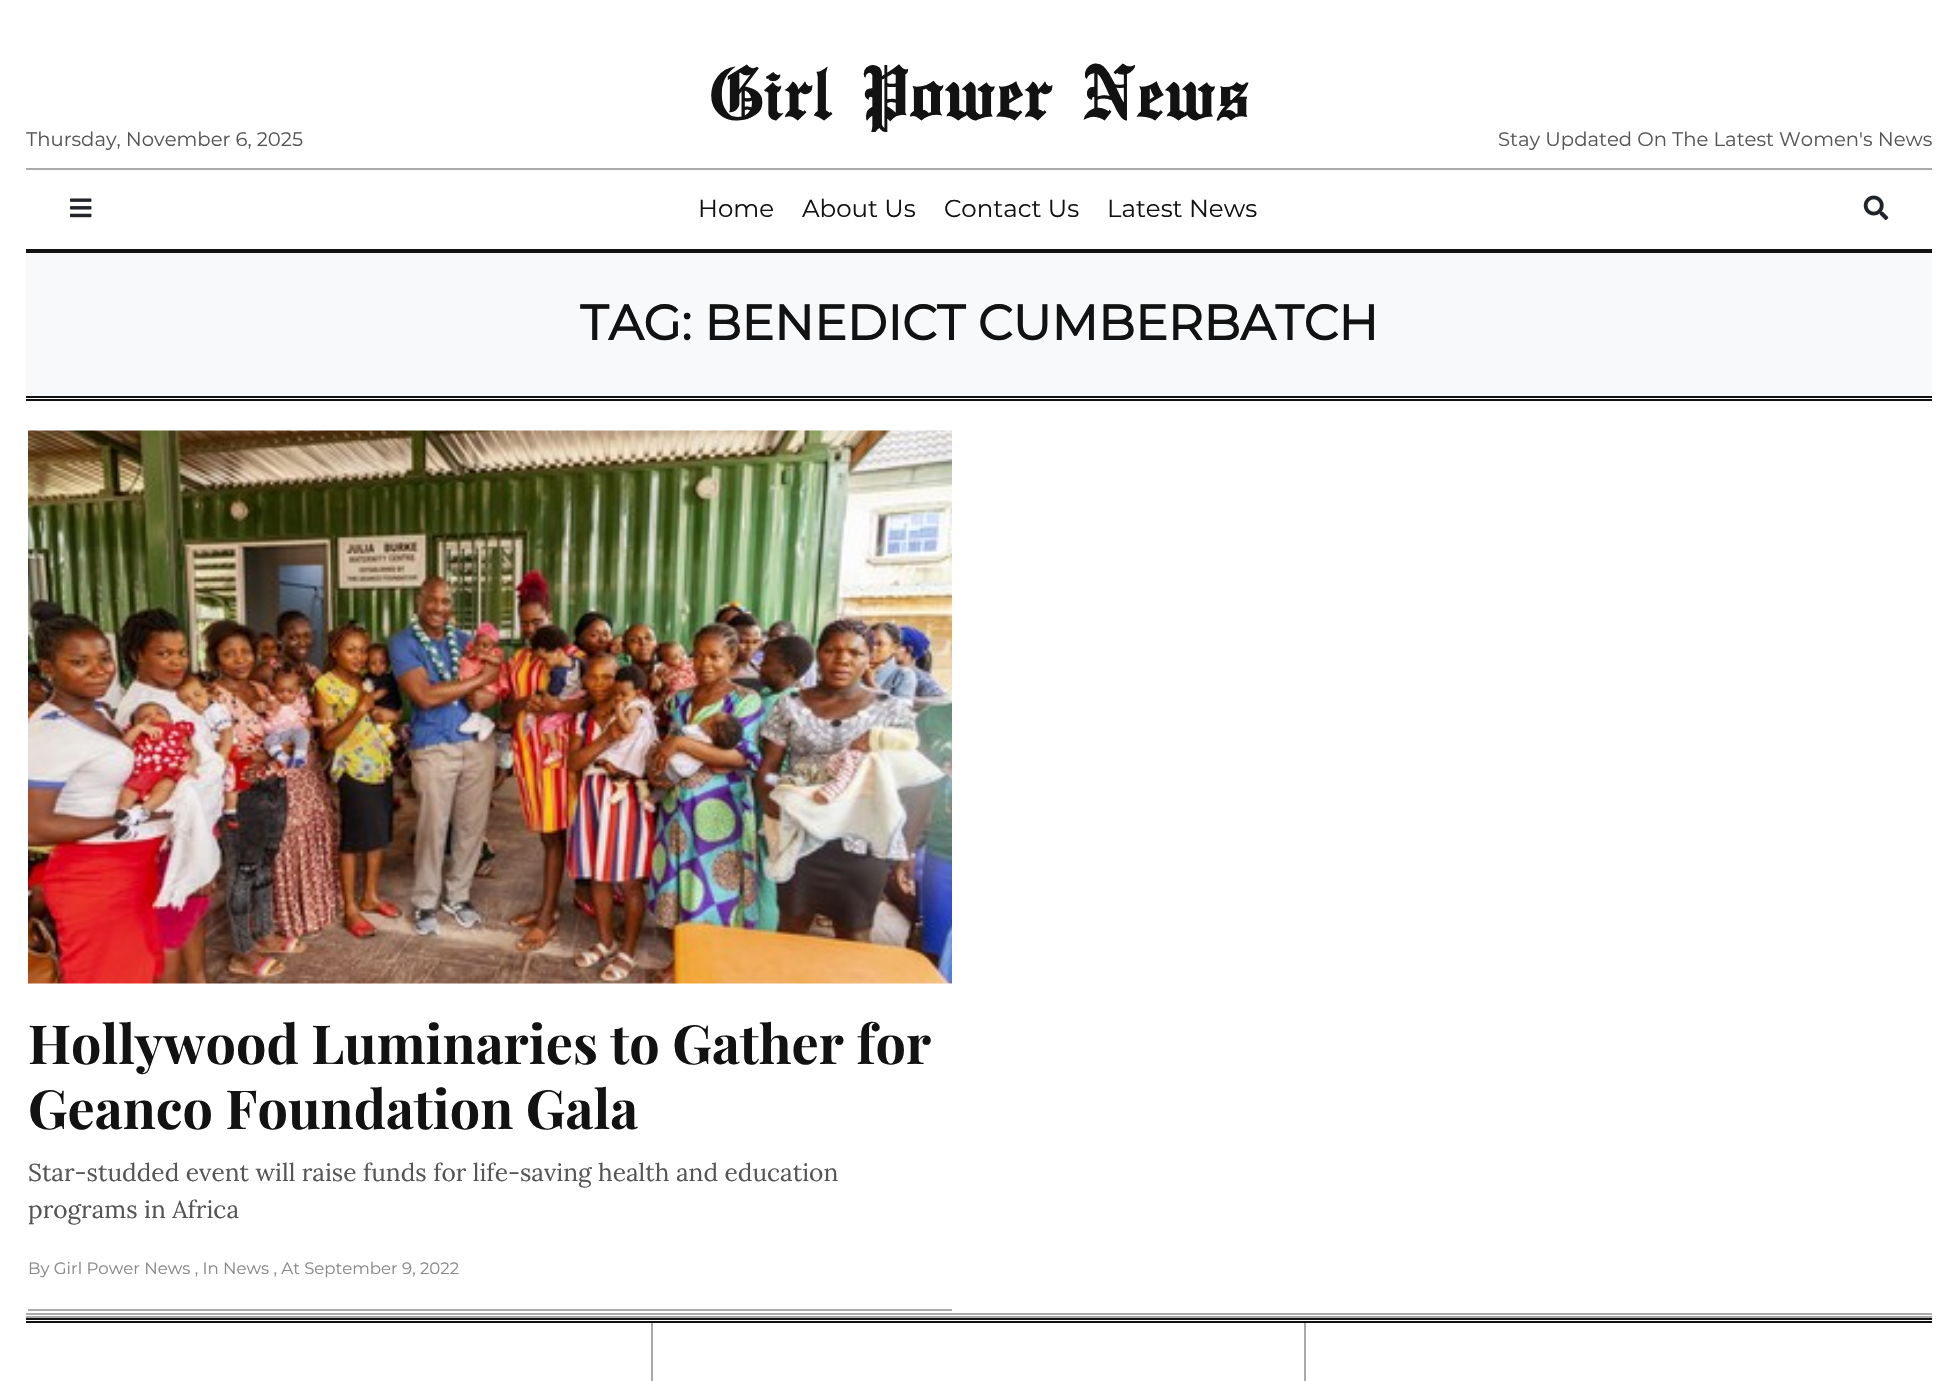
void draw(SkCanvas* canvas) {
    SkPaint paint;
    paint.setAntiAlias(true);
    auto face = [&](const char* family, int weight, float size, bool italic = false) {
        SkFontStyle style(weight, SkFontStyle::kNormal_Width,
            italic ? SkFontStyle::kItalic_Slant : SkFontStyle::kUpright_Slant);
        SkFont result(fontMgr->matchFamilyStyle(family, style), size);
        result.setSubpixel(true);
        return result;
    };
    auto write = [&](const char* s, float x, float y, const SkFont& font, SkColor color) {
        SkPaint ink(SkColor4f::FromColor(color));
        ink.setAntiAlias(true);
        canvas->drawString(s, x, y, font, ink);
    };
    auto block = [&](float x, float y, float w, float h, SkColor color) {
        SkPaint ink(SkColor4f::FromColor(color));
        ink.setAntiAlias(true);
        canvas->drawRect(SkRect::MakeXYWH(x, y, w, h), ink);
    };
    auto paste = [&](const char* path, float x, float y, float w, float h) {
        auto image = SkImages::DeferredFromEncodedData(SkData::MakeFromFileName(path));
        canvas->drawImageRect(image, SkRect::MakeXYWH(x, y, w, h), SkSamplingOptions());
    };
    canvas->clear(SK_ColorWHITE);
    auto kFont1 = face("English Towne", 500, 84);
    write("Girl Power News", 710, 117, kFont1, SkColorSetRGB(18, 18, 18));
    auto kFont2 = face("Montserrat", 100, 19.6f);
    write("Thursday, November 6, 2025", 26, 146, kFont2, SkColorSetRGB(85, 85, 85));
    write("Stay Updated On The Latest Women's News", 1498, 146, kFont2, SkColorSetRGB(85, 85, 85));
    block(26, 168, 1906, 2, SkColorSetRGB(170, 170, 170));
    paste("pic1.png", 70, 198, 22, 20);
    auto kFont3 = face("Montserrat", 100, 24.5f);
    write("Home", 698, 217, kFont3, SkColorSetRGB(18, 18, 18));
    write("About Us", 802, 217, kFont3, SkColorSetRGB(18, 18, 18));
    write("Contact Us", 944, 217, kFont3, SkColorSetRGB(18, 18, 18));
    write("Latest News", 1107, 217, kFont3, SkColorSetRGB(18, 18, 18));
    paste("pic2.png", 1863, 195, 26, 25);
    block(26, 249, 1906, 4, SkColorSetRGB(18, 18, 18));
    block(26, 253, 1906, 143, SkColorSetRGB(248, 249, 250));
    auto kFont4 = face("Montserrat", 700, 49);
    write("TAG: BENEDICT CUMBERBATCH", 580, 340, kFont4, SkColorSetRGB(18, 18, 18));
    block(26, 396, 1906, 2, SkColorSetRGB(18, 18, 18));
    block(26, 399, 1906, 2, SkColorSetRGB(18, 18, 18));
    paste("pic3.png", 28, 430, 924, 554);
    auto kFont5 = face("Playfair Display", 700, 53.9f);
    write("Hollywood Luminaries to Gather for", 28, 1064, kFont5, SkColorSetRGB(18, 18, 18));
    write("Geanco Foundation Gala", 28, 1129, kFont5, SkColorSetRGB(18, 18, 18));
    auto kFont6 = face("Lora", 400, 24.5f);
    write("Star-studded event will raise funds for life-saving health and education", 28, 1181, kFont6, SkColorSetRGB(85, 85, 85));
    write("programs in Africa", 28, 1218, kFont6, SkColorSetRGB(85, 85, 85));
    auto kFont7 = face("Montserrat", 100, 16.55f);
    write("By Girl Power News , In News , At September 9, 2022", 28, 1274, kFont7, SkColorSetRGB(136, 136, 136));
    block(28, 1309, 924, 2, SkColorSetRGB(170, 170, 170));
    block(26, 1313, 1906, 2, SkColorSetRGB(170, 170, 170));
    block(26, 1316, 1906, 2, SkColorSetRGB(170, 170, 170));
    block(26, 1318, 1906, 2, SkColorSetRGB(18, 18, 18));
    block(26, 1321, 1906, 2, SkColorSetRGB(18, 18, 18));
    block(651, 1323, 2, 58, SkColorSetRGB(170, 170, 170));
    block(1304, 1323, 2, 58, SkColorSetRGB(170, 170, 170));
}
